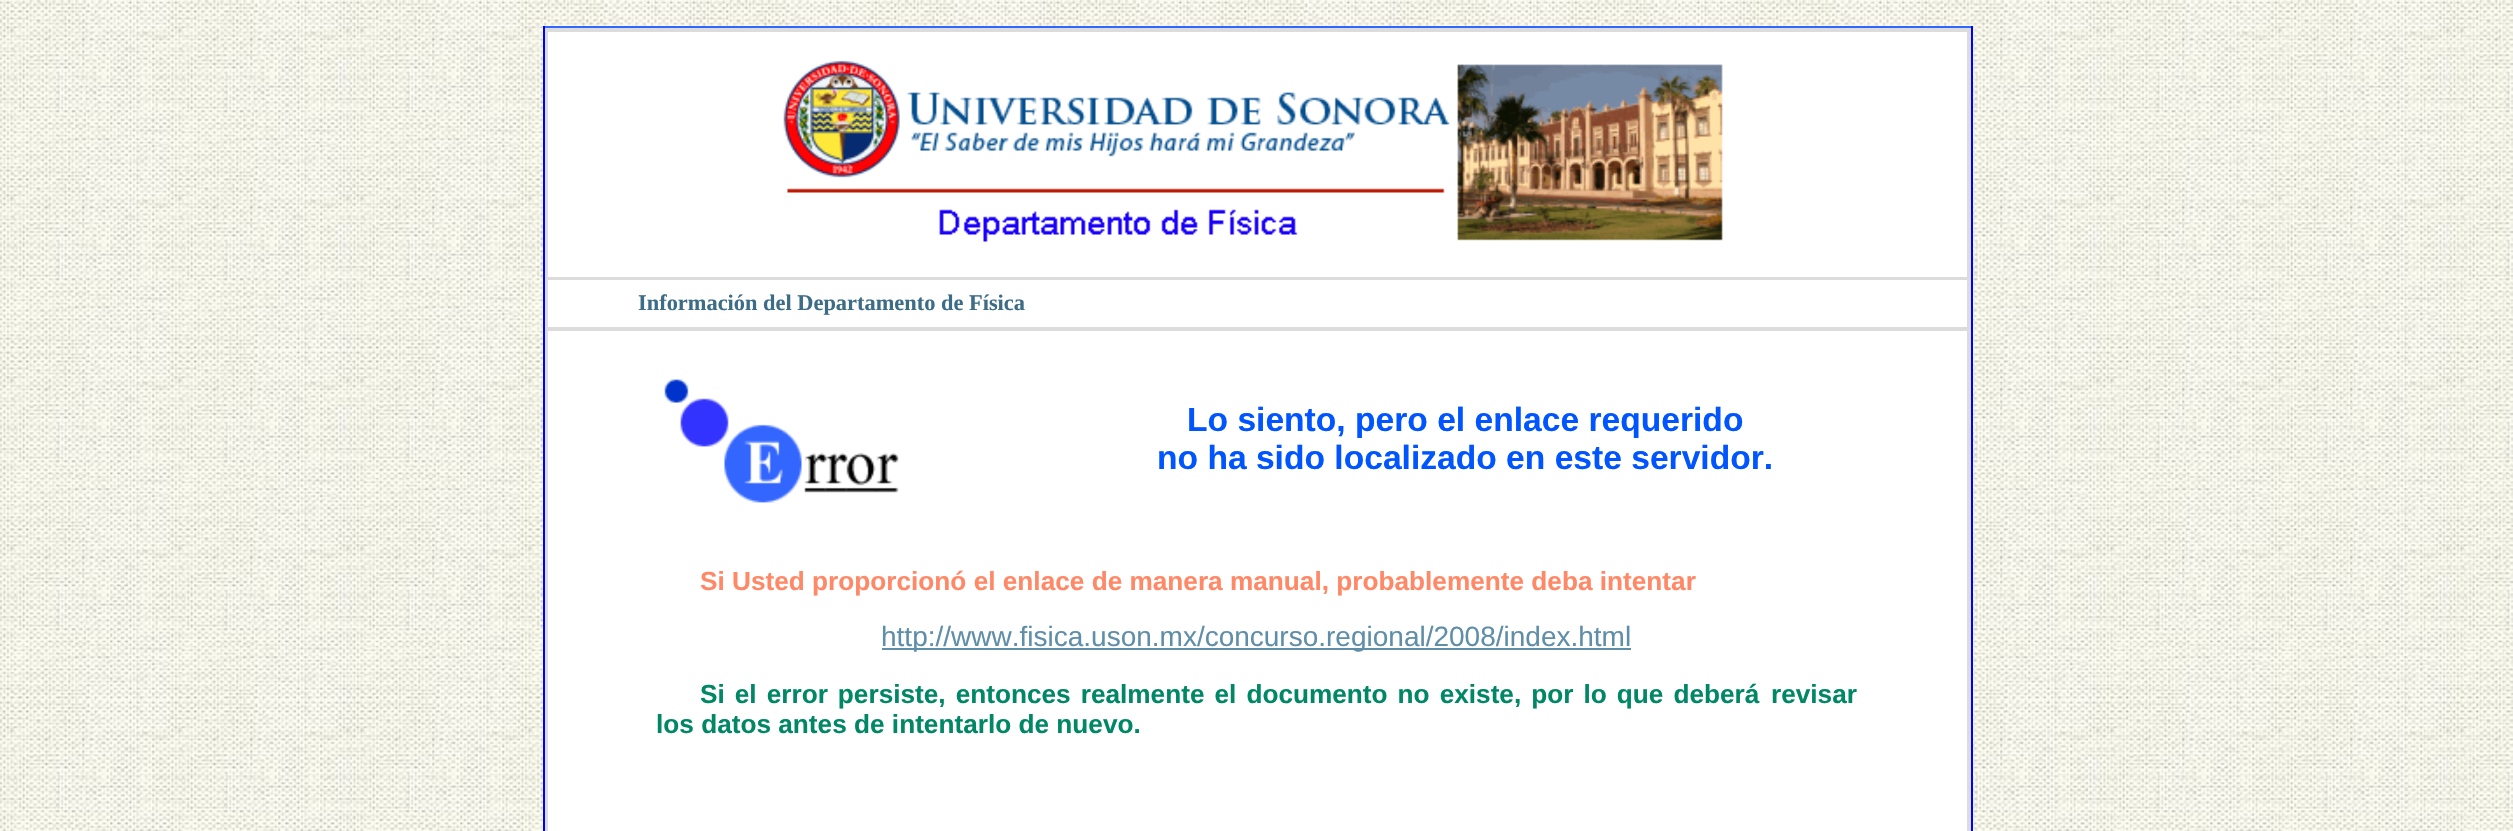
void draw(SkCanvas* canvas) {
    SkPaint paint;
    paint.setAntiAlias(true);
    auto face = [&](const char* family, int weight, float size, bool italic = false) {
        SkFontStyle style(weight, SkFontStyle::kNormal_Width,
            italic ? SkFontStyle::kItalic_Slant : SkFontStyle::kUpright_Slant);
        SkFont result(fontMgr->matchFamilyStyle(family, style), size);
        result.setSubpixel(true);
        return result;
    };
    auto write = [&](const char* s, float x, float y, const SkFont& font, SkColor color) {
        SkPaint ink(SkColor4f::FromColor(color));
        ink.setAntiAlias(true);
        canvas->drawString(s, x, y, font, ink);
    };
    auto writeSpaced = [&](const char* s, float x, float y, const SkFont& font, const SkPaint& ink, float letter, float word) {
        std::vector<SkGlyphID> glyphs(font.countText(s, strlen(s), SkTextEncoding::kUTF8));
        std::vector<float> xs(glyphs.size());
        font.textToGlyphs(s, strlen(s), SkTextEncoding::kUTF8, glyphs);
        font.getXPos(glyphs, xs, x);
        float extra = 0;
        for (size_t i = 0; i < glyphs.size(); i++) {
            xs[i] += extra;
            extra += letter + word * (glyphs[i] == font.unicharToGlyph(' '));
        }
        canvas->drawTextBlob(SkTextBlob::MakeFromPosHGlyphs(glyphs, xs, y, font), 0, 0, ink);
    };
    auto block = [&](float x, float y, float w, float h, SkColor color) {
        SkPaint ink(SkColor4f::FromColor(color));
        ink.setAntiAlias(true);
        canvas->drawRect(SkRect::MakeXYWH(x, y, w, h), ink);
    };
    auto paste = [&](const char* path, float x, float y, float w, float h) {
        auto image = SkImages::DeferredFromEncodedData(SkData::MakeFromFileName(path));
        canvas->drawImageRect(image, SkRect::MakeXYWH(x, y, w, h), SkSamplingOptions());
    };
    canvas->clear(SK_ColorWHITE);
    paste("pic1.png", 0, 0, 2513, 831);
    block(545, 28, 1426, 803, SkColorSetRGB(220, 220, 220));
    block(543, 26, 1429, 2, SkColorSetRGB(51, 102, 255));
    block(1971, 26, 2, 805, SkColorSetRGB(0, 0, 255));
    block(543, 26, 2, 805, SkColorSetRGB(0, 0, 255));
    block(548, 32, 1419, 245, SK_ColorWHITE);
    paste("pic2.png", 783, 60, 940, 182);
    block(548, 280, 1419, 47, SK_ColorWHITE);
    auto kFont1 = face("Liberation Serif", 700, 22.4f);
    write("Información del Departamento de Física", 638, 310, kFont1, SkColorSetRGB(61, 108, 135));
    block(548, 331, 1419, 500, SK_ColorWHITE);
    paste("pic3.png", 664, 379, 235, 124);
    auto kFont2 = face("Liberation Sans", 700, 33.6f);
    write("Lo siento, pero el enlace requerido", 1187, 431, kFont2, SkColorSetRGB(0, 85, 255));
    write("no ha sido localizado en este servidor.", 1157, 469, kFont2, SkColorSetRGB(0, 85, 255));
    auto kFont3 = face("Liberation Sans", 700, 26.2f);
    write("Si Usted proporcionó el enlace de manera manual, probablemente deba intentar", 700, 590, kFont3, SkColorSetRGB(255, 136, 102));
    block(882, 648, 749, 2, SkColorSetRGB(95, 142, 169));
    auto kFont4 = face("Liberation Sans", 400, 28);
    write("http://www.fisica.uson.mx/concurso.regional/2008/index.html", 881, 646, kFont4, SkColorSetRGB(95, 142, 169));
    paint.setColor(SkColorSetRGB(0, 136, 102));
    writeSpaced("Si el error persiste, entonces realmente el documento no existe, por lo que deberá", 700, 703, kFont3, paint, 0, 2.75f);
    write("revisar", 1771, 703, kFont3, SkColorSetRGB(0, 136, 102));
    write("los datos antes de intentarlo de nuevo.", 656, 733, kFont3, SkColorSetRGB(0, 136, 102));
}
